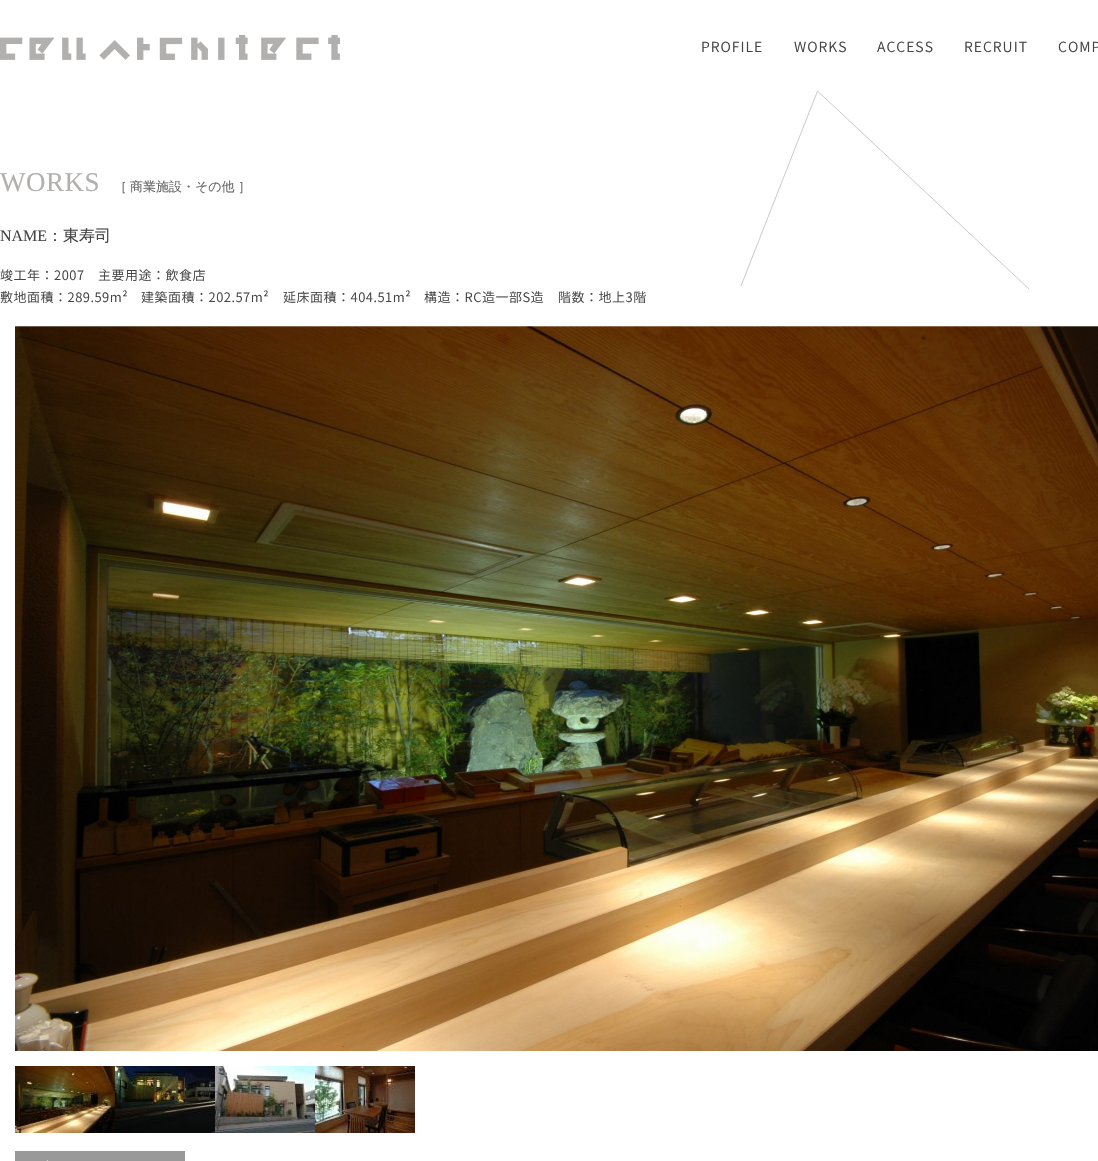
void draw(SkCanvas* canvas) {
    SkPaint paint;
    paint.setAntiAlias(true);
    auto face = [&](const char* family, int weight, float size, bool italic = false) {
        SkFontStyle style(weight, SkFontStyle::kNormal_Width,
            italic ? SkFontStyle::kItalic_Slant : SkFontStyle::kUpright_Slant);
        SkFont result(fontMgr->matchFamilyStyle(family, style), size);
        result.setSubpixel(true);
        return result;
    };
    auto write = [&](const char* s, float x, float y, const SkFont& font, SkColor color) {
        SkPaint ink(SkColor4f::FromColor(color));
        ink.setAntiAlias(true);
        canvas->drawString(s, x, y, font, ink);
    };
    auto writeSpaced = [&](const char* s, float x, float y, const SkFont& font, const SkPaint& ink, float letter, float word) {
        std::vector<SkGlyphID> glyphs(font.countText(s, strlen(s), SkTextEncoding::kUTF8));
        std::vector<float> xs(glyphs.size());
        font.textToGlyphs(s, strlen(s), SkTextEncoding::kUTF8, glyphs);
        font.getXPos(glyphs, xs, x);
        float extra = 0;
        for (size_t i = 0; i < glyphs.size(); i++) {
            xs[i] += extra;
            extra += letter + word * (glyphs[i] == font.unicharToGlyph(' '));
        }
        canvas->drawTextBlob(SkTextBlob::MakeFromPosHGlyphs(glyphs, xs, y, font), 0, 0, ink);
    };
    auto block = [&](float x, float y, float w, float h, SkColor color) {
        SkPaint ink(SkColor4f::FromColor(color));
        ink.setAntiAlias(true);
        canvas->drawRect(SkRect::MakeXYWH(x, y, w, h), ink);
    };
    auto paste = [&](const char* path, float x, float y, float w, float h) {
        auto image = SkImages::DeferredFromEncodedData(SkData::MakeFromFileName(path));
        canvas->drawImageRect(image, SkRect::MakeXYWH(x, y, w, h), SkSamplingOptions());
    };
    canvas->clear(SK_ColorWHITE);
    paste("pic1.png", 0, 35, 340, 25);
    auto kFont1 = face("Noto Sans CJK JP", 300, 14);
    paint.setColor(SkColorSetRGB(68, 68, 68));
    writeSpaced("PROFILE", 701, 52, kFont1, paint, 1, 0);
    writeSpaced("WORKS", 794, 52, kFont1, paint, 1, 0);
    writeSpaced("ACCESS", 877, 52, kFont1, paint, 1, 0);
    writeSpaced("RECRUIT", 964, 52, kFont1, paint, 1, 0);
    writeSpaced("COMP", 1058, 52, kFont1, paint, 1, 0);
    paint.setStyle(SkPaint::kStroke_Style);
    paint.setStrokeWidth(1);
    paint.setColor(SkColorSetRGB(202, 202, 202));
    canvas->drawPath(SkPathBuilder().moveTo(741, 286).lineTo(817.5f, 91).lineTo(1029, 289).detach(), paint);
    auto kFont2 = face("Liberation Serif", 400, 27);
    paint.setStyle(SkPaint::kFill_Style);
    paint.setColor(SkColorSetRGB(178, 176, 174));
    writeSpaced("WORKS", 0, 191, kFont2, paint, 0.5f, 0);
    auto kFont3 = face("WenQuanYi Zen Hei", 500, 13);
    write("［", 114, 191, kFont3, SkColorSetRGB(102, 102, 102));
    write("商業施設・その他", 130, 191, kFont3, SkColorSetRGB(102, 102, 102));
    write("］", 238, 191, kFont3, SkColorSetRGB(102, 102, 102));
    auto kFont4 = face("Liberation Serif", 400, 16);
    write("NAME", 0, 241, kFont4, SkColorSetRGB(68, 68, 68));
    auto kFont5 = face("WenQuanYi Zen Hei", 500, 16);
    write("：東寿司", 47, 241, kFont5, SkColorSetRGB(68, 68, 68));
    auto kFont6 = face("Noto Sans CJK JP", 300, 13);
    paint.setColor(SkColorSetRGB(68, 68, 68));
    writeSpaced("竣工年：2007", 0, 280, kFont6, paint, 0.5f, 0);
    writeSpaced("主要用途：飲食店", 98, 280, kFont6, paint, 0.5f, 0);
    writeSpaced("敷地面積：289.59m²", 0, 302, kFont6, paint, 0.5f, 0);
    writeSpaced("建築面積：202.57m²", 141, 302, kFont6, paint, 0.5f, 0);
    writeSpaced("延床面積：404.51m²", 283, 302, kFont6, paint, 0.5f, 0);
    writeSpaced("構造：RC造一部S造", 424, 302, kFont6, paint, 0.5f, 0);
    writeSpaced("階数：地上3階", 558, 302, kFont6, paint, 0.5f, 0);
    paste("pic2.png", 15, 326, 1083, 725);
    paste("pic3.png", 15, 1066, 100, 67);
    paste("pic4.png", 115, 1066, 100, 67);
    paste("pic5.png", 215, 1066, 100, 67);
    paste("pic6.png", 315, 1066, 100, 67);
    block(15, 1151, 170, 10, SkColorSetRGB(153, 153, 153));
    paint.setStyle(SkPaint::kStroke_Style);
    paint.setColor(SK_ColorWHITE);
    canvas->drawPath(SkPathBuilder().moveTo(47.5f, 1160.5f).lineTo(30.5f, 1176).lineTo(47, 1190).detach(), paint);
}
